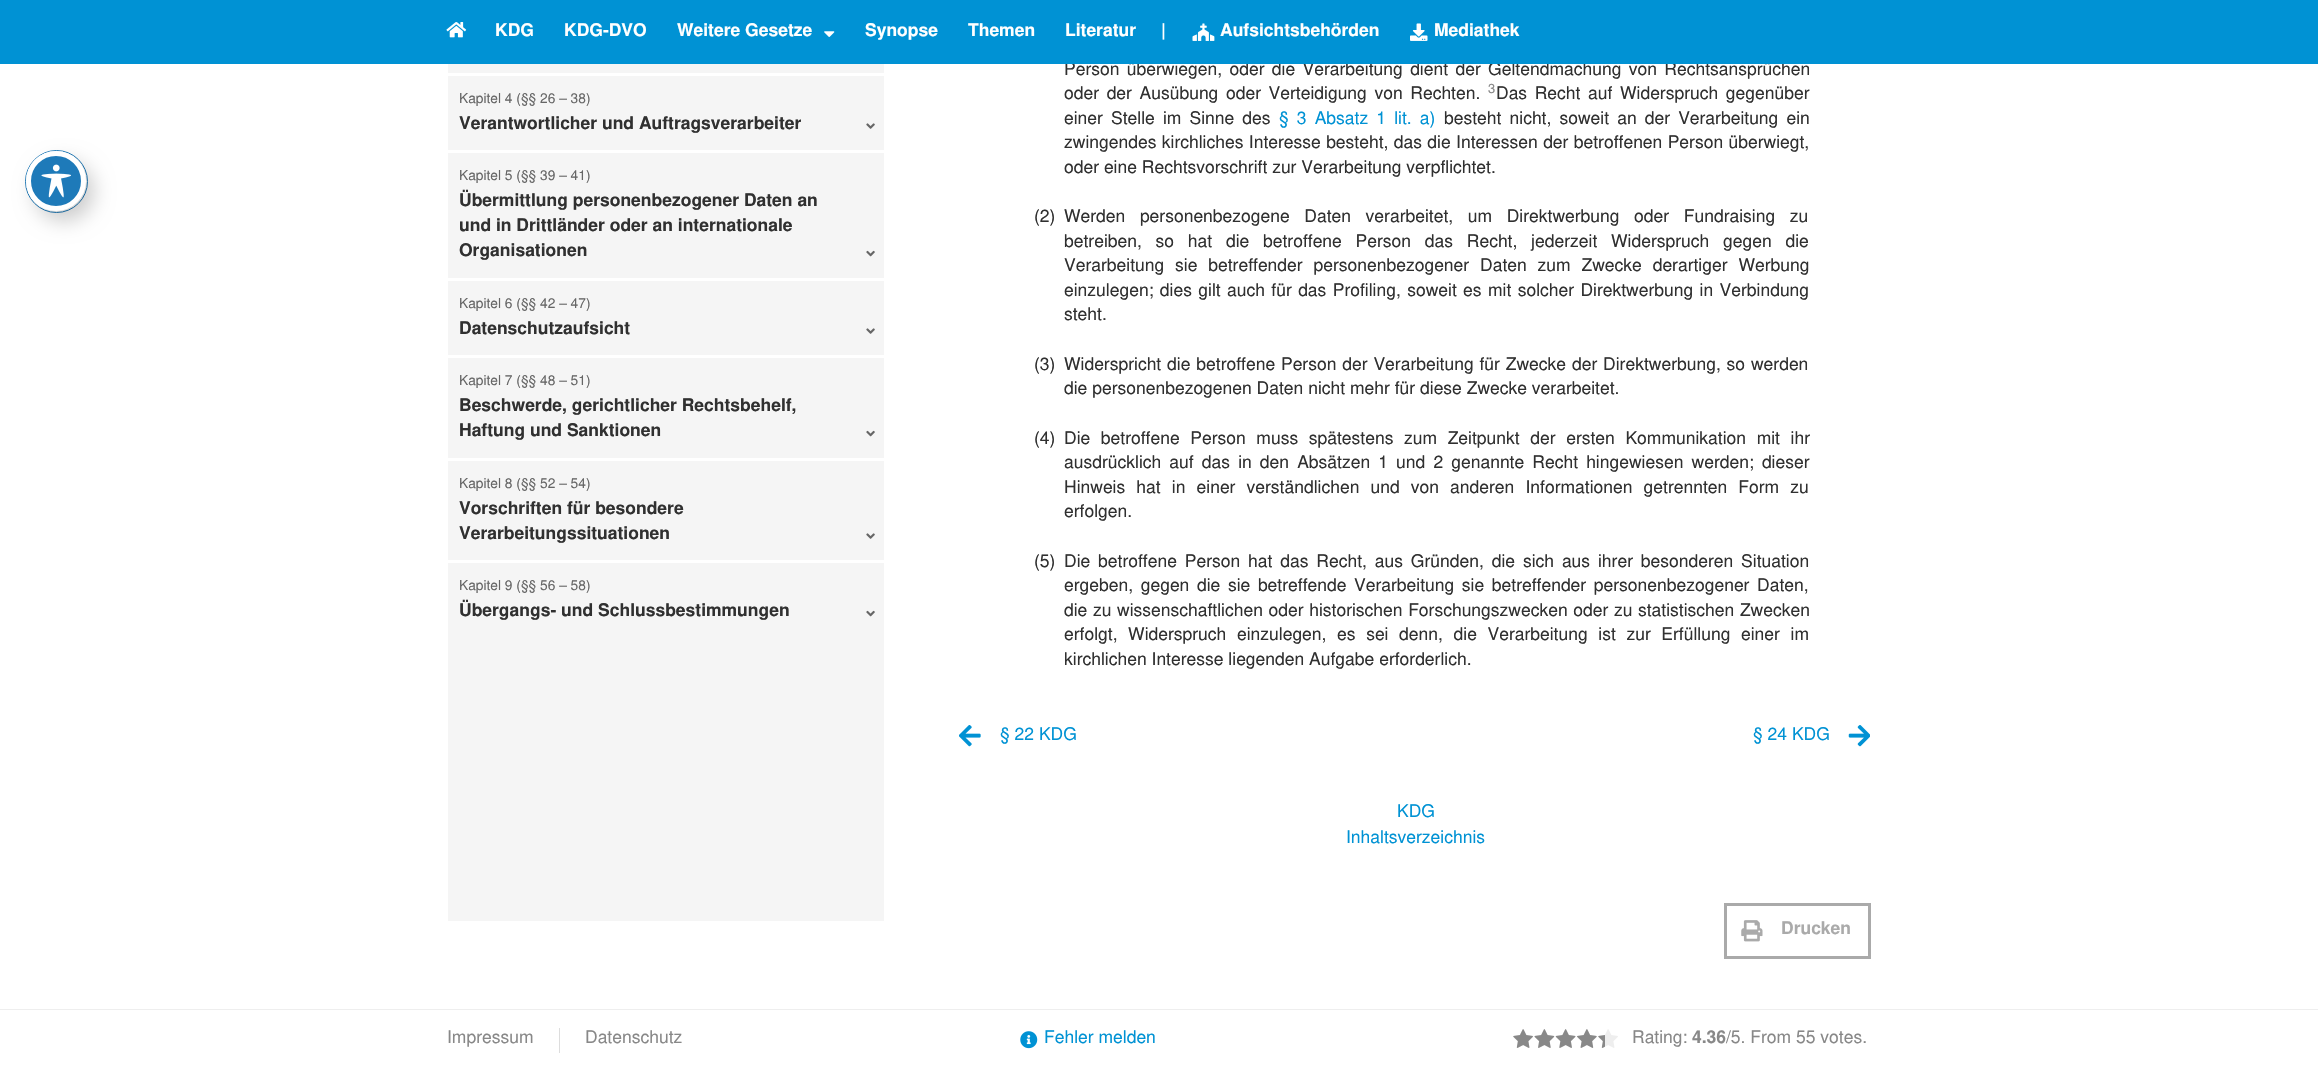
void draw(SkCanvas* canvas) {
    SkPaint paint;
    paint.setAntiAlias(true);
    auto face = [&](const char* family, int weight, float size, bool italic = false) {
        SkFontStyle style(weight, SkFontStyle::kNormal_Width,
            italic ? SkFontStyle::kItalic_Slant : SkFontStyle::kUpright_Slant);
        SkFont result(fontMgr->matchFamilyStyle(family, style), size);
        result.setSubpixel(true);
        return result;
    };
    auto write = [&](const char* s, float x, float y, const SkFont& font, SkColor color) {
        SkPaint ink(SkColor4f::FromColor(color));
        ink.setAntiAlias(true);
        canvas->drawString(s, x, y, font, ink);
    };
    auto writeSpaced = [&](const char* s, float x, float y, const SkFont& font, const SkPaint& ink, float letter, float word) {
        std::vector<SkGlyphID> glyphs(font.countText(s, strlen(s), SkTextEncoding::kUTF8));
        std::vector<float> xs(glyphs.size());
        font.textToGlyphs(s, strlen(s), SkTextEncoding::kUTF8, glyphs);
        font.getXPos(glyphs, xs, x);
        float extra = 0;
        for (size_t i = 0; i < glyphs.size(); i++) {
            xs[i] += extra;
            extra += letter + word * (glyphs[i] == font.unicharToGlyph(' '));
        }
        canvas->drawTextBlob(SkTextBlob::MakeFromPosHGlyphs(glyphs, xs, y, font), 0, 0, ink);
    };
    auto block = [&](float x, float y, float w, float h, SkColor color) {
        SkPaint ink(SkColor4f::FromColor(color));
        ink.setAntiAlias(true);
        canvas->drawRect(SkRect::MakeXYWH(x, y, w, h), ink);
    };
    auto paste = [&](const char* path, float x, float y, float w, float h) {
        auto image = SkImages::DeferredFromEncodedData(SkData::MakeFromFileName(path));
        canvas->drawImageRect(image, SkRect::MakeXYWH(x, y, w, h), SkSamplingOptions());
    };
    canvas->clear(SK_ColorWHITE);
    auto kFont1 = face("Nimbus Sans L", 400, 17.5f);
    paint.setColor(SkColorSetRGB(48, 48, 48));
    writeSpaced("Person überwiegen, oder die Verarbeitung dient der Geltendmachung von Rechtsansprüchen", 1064, 75, kFont1, paint, 0, 2.5f);
    block(0, 0, 2318, 64, SkColorSetRGB(0, 146, 212));
    paste("pic1.png", 446, 22, 21, 16);
    auto kFont2 = face("Nimbus Sans L", 700, 17.5f);
    write("KDG", 495, 36, kFont2, SK_ColorWHITE);
    write("KDG-DVO", 564, 36, kFont2, SK_ColorWHITE);
    write("Weitere Gesetze", 677, 36, kFont2, SK_ColorWHITE);
    paste("pic2.png", 824, 31, 11, 6);
    write("Synopse", 865, 36, kFont2, SK_ColorWHITE);
    write("Themen", 968, 36, kFont2, SK_ColorWHITE);
    write("Literatur", 1065, 36, kFont2, SK_ColorWHITE);
    write("|", 1161, 36, kFont2, SK_ColorWHITE);
    paste("pic3.png", 1192, 23, 23, 18);
    write("Aufsichtsbehörden", 1220, 36, kFont2, SK_ColorWHITE);
    paste("pic4.png", 1410, 23, 18, 18);
    write("Mediathek", 1434, 36, kFont2, SK_ColorWHITE);
    paint.setStyle(SkPaint::kStroke_Style);
    paint.setStrokeWidth(1);
    paint.setColor(SkColorSetRGB(30, 122, 185));
    canvas->drawCircle(56.5f, 181.5f, 31, paint);
    paint.setStyle(SkPaint::kFill_Style);
    paint.setColor(SkColorSetARGB(51, 0, 0, 0));
    paint.setMaskFilter(SkMaskFilter::MakeBlur(kNormal_SkBlurStyle, 10));
    canvas->drawRoundRect(SkRect::MakeXYWH(34, 161, 60, 60), 30, 30, paint);
    paint.setMaskFilter(nullptr);
    paint.setColor(SkColorSetRGB(30, 122, 185));
    canvas->drawCircle(56, 181, 27.5f, paint);
    paint.setStyle(SkPaint::kStroke_Style);
    paint.setStrokeWidth(5);
    paint.setColor(SK_ColorWHITE);
    canvas->drawCircle(56, 181, 27.5f, paint);
    paste("pic5.png", 41, 164, 30, 34);
    block(448, 64, 436, 857, SkColorSetRGB(245, 245, 245));
    block(448, 73, 436, 3, SK_ColorWHITE);
    block(448, 150, 436, 3, SK_ColorWHITE);
    auto kFont3 = face("Nimbus Sans L", 400, 13.75f);
    write("Kapitel 4 (§§ 26 – 38)", 459, 103, kFont3, SkColorSetRGB(102, 102, 102));
    write("Verantwortlicher und Auftragsverarbeiter", 459, 129, kFont2, SkColorSetRGB(48, 48, 48));
    paste("pic6.png", 866, 123, 9, 6);
    block(448, 278, 436, 3, SK_ColorWHITE);
    write("Kapitel 5 (§§ 39 – 41)", 459, 180, kFont3, SkColorSetRGB(102, 102, 102));
    write("Übermittlung personenbezogener Daten an", 459, 206, kFont2, SkColorSetRGB(48, 48, 48));
    write("und in Drittländer oder an internationale", 459, 231, kFont2, SkColorSetRGB(48, 48, 48));
    write("Organisationen", 459, 256, kFont2, SkColorSetRGB(48, 48, 48));
    paste("pic7.png", 866, 250, 9, 7);
    block(448, 355, 436, 3, SK_ColorWHITE);
    write("Kapitel 6 (§§ 42 – 47)", 459, 308, kFont3, SkColorSetRGB(102, 102, 102));
    write("Datenschutzaufsicht", 459, 334, kFont2, SkColorSetRGB(48, 48, 48));
    paste("pic6.png", 866, 328, 9, 6);
    block(448, 458, 436, 3, SK_ColorWHITE);
    write("Kapitel 7 (§§ 48 – 51)", 459, 385, kFont3, SkColorSetRGB(102, 102, 102));
    write("Beschwerde, gerichtlicher Rechtsbehelf,", 459, 411, kFont2, SkColorSetRGB(48, 48, 48));
    write("Haftung und Sanktionen", 459, 436, kFont2, SkColorSetRGB(48, 48, 48));
    paste("pic7.png", 866, 430, 9, 7);
    block(448, 560, 436, 3, SK_ColorWHITE);
    write("Kapitel 8 (§§ 52 – 54)", 459, 488, kFont3, SkColorSetRGB(102, 102, 102));
    write("Vorschriften für besondere", 459, 514, kFont2, SkColorSetRGB(48, 48, 48));
    write("Verarbeitungssituationen", 459, 539, kFont2, SkColorSetRGB(48, 48, 48));
    paste("pic6.png", 866, 533, 9, 6);
    write("Kapitel 9 (§§ 56 – 58)", 459, 590, kFont3, SkColorSetRGB(102, 102, 102));
    write("Übergangs- und Schlussbestimmungen", 459, 616, kFont2, SkColorSetRGB(48, 48, 48));
    paste("pic7.png", 866, 610, 9, 7);
    paint.setStyle(SkPaint::kFill_Style);
    paint.setColor(SkColorSetRGB(48, 48, 48));
    writeSpaced("oder der Ausübung oder Verteidigung von Rechten.", 1064, 99, kFont1, paint, 0, 2.75f);
    auto kFont4 = face("Nimbus Sans L", 400, 13);
    write("3", 1488, 93, kFont4, SkColorSetRGB(136, 136, 136));
    writeSpaced("Das Recht auf Widerspruch gegenüber", 1496, 99, kFont1, paint, 0, 2.75f);
    writeSpaced("einer Stelle im Sinne des", 1064, 124, kFont1, paint, 0, 3.25f);
    paint.setColor(SkColorSetRGB(0, 146, 212));
    writeSpaced("§ 3 Absatz 1 lit. a)", 1279, 124, kFont1, paint, 0, 3.25f);
    paint.setColor(SkColorSetRGB(48, 48, 48));
    writeSpaced("besteht nicht, soweit an der Verarbeitung ein", 1444, 124, kFont1, paint, 0, 3.25f);
    writeSpaced("zwingendes kirchliches Interesse besteht, das die Interessen der betroffenen Person überwiegt,", 1064, 148, kFont1, paint, 0, 0.5f);
    write("oder eine Rechtsvorschrift zur Verarbeitung verpflichtet.", 1064, 173, kFont1, SkColorSetRGB(48, 48, 48));
    write("(2)", 1034, 222, kFont1, SkColorSetRGB(48, 48, 48));
    writeSpaced("Werden personenbezogene Daten verarbeitet, um Direktwerbung oder Fundraising zu", 1064, 222, kFont1, paint, 0, 9.75f);
    writeSpaced("betreiben, so hat die betroffene Person das Recht, jederzeit Widerspruch gegen die", 1064, 247, kFont1, paint, 0, 8.9f);
    writeSpaced("Verarbeitung sie betreffender personenbezogener Daten zum Zwecke derartiger Werbung", 1064, 271, kFont1, paint, 0, 6);
    writeSpaced("einzulegen; dies gilt auch für das Profiling, soweit es mit solcher Direktwerbung in Verbindung", 1064, 296, kFont1, paint, 0, 1.5f);
    write("steht.", 1064, 320, kFont1, SkColorSetRGB(48, 48, 48));
    write("(3)", 1034, 370, kFont1, SkColorSetRGB(48, 48, 48));
    writeSpaced("Widerspricht die betroffene Person der Verarbeitung für Zwecke der Direktwerbung, so werden", 1064, 370, kFont1, paint, 0, 1);
    write("die personenbezogenen Daten nicht mehr für diese Zwecke verarbeitet.", 1064, 394, kFont1, SkColorSetRGB(48, 48, 48));
    write("(4)", 1034, 444, kFont1, SkColorSetRGB(48, 48, 48));
    writeSpaced("Die betroffene Person muss spätestens zum Zeitpunkt der ersten Kommunikation mit ihr", 1064, 444, kFont1, paint, 0, 5.75f);
    writeSpaced("ausdrücklich auf das in den Absätzen 1 und 2 genannte Recht hingewiesen werden; dieser", 1064, 468, kFont1, paint, 0, 3.25f);
    writeSpaced("Hinweis hat in einer verständlichen und von anderen Informationen getrennten Form zu", 1064, 493, kFont1, paint, 0, 6.25f);
    write("erfolgen.", 1064, 517, kFont1, SkColorSetRGB(48, 48, 48));
    write("(5)", 1034, 567, kFont1, SkColorSetRGB(48, 48, 48));
    writeSpaced("Die betroffene Person hat das Recht, aus Gründen, die sich aus ihrer besonderen Situation", 1064, 567, kFont1, paint, 0, 3);
    writeSpaced("ergeben, gegen die sie betreffende Verarbeitung sie betreffender personenbezogener Daten,", 1064, 591, kFont1, paint, 0, 2.75f);
    writeSpaced("die zu wissenschaftlichen oder historischen Forschungszwecken oder zu statistischen Zwecken", 1064, 616, kFont1, paint, 0, 0.75f);
    writeSpaced("erfolgt, Widerspruch einzulegen, es sei denn, die Verarbeitung ist zur Erfüllung einer im", 1064, 640, kFont1, paint, 0, 5.75f);
    write("kirchlichen Interesse liegenden Aufgabe erforderlich.", 1064, 665, kFont1, SkColorSetRGB(48, 48, 48));
    paste("pic8.png", 959, 725, 22, 22);
    write("§ 22 KDG", 1000, 740, kFont1, SkColorSetRGB(0, 146, 212));
    write("§ 24 KDG", 1753, 740, kFont1, SkColorSetRGB(0, 146, 212));
    paste("pic9.png", 1848, 725, 22, 22);
    write("KDG", 1397, 817, kFont1, SkColorSetRGB(0, 146, 212));
    write("Inhaltsverzeichnis", 1346, 843, kFont1, SkColorSetRGB(0, 146, 212));
    paint.setStyle(SkPaint::kStroke_Style);
    paint.setStrokeWidth(3);
    paint.setColor(SkColorSetRGB(170, 170, 170));
    canvas->drawRect(SkRect::MakeXYWH(1725.5f, 904.5f, 144, 53), paint);
    paste("pic10.png", 1741, 920, 22, 22);
    write("Drucken", 1781, 934, kFont2, SkColorSetRGB(170, 170, 170));
    block(0, 1009, 2318, 1, SkColorSetRGB(238, 238, 238));
    write("Impressum", 447, 1043, kFont1, SkColorSetRGB(136, 136, 136));
    block(559, 1028, 1, 25, SkColorSetRGB(221, 221, 221));
    write("Datenschutz", 585, 1043, kFont1, SkColorSetRGB(136, 136, 136));
    paste("pic11.png", 1020, 1031, 18, 18);
    write("Fehler melden", 1044, 1043, kFont1, SkColorSetRGB(0, 146, 212));
    paste("pic12.png", 1513, 1029, 105, 19);
    paste("pic13.png", 1513, 1029, 92, 19);
    write("Rating:", 1632, 1043, kFont1, SkColorSetRGB(136, 136, 136));
    write("4.36", 1692, 1043, kFont2, SkColorSetRGB(136, 136, 136));
    write("/5. From 55 votes.", 1726, 1043, kFont1, SkColorSetRGB(136, 136, 136));
}
